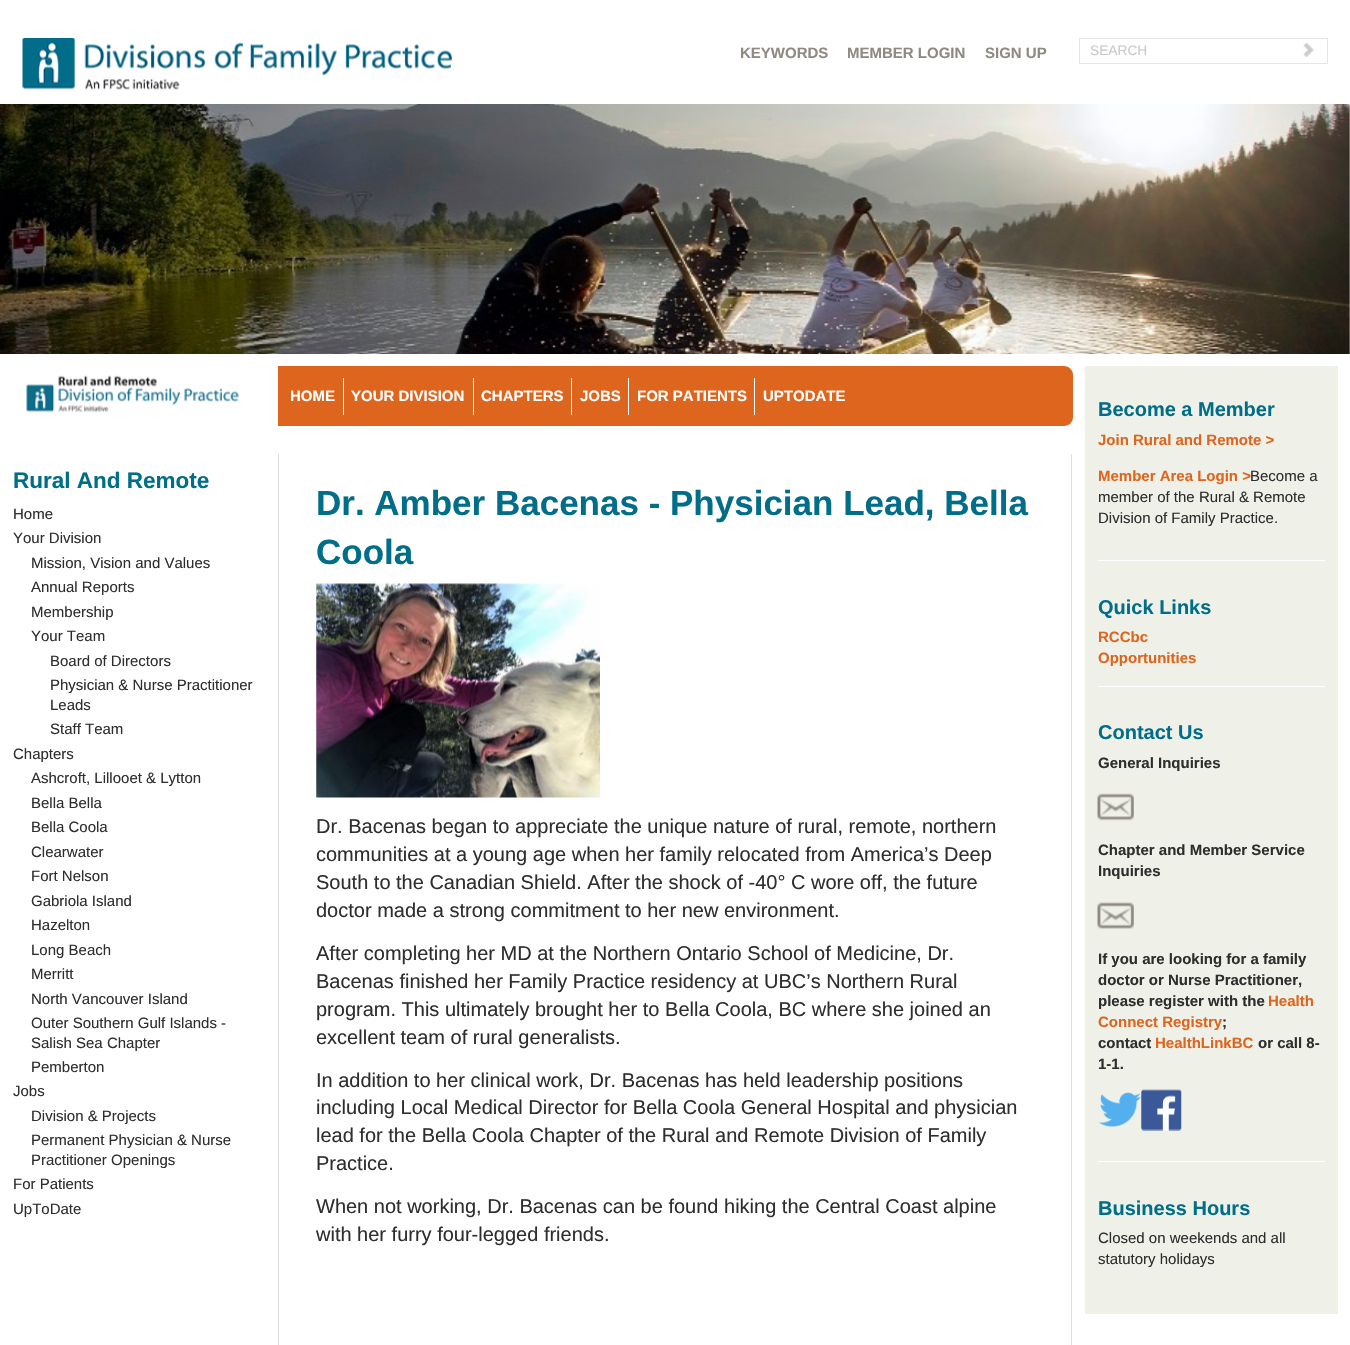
void draw(SkCanvas* canvas) {
    SkPaint paint;
    paint.setAntiAlias(true);
    auto face = [&](const char* family, int weight, float size, bool italic = false) {
        SkFontStyle style(weight, SkFontStyle::kNormal_Width,
            italic ? SkFontStyle::kItalic_Slant : SkFontStyle::kUpright_Slant);
        SkFont result(fontMgr->matchFamilyStyle(family, style), size);
        result.setSubpixel(true);
        return result;
    };
    auto write = [&](const char* s, float x, float y, const SkFont& font, SkColor color) {
        SkPaint ink(SkColor4f::FromColor(color));
        ink.setAntiAlias(true);
        canvas->drawString(s, x, y, font, ink);
    };
    auto block = [&](float x, float y, float w, float h, SkColor color) {
        SkPaint ink(SkColor4f::FromColor(color));
        ink.setAntiAlias(true);
        canvas->drawRect(SkRect::MakeXYWH(x, y, w, h), ink);
    };
    auto paste = [&](const char* path, float x, float y, float w, float h) {
        auto image = SkImages::DeferredFromEncodedData(SkData::MakeFromFileName(path));
        canvas->drawImageRect(image, SkRect::MakeXYWH(x, y, w, h), SkSamplingOptions());
    };
    canvas->clear(SK_ColorWHITE);
    paste("pic1.png", 22, 38, 430, 52);
    auto kFont1 = face("Liberation Sans", 700, 15);
    write("KEYWORDS", 740, 58, kFont1, SkColorSetRGB(142, 138, 129));
    write("MEMBER LOGIN", 847, 58, kFont1, SkColorSetRGB(142, 138, 129));
    write("SIGN UP", 985, 58, kFont1, SkColorSetRGB(142, 138, 129));
    paste("pic2.png", 1303, 43, 11, 14);
    paint.setStyle(SkPaint::kStroke_Style);
    paint.setStrokeWidth(1);
    paint.setColor(SkColorSetRGB(229, 229, 229));
    canvas->drawRect(SkRect::MakeXYWH(1079.5f, 38.5f, 248, 25), paint);
    auto kFont2 = face("Liberation Sans", 400, 13.75f);
    write("SEARCH", 1090, 55, kFont2, SkColorSetRGB(202, 202, 202));
    paste("pic3.png", 0, 104, 1350, 250);
    paste("pic4.png", 26, 375, 213, 37);
    paint.setStyle(SkPaint::kFill_Style);
    paint.setColor(SkColorSetRGB(221, 101, 30));
    canvas->drawPath(SkPathBuilder().moveTo(278, 366).lineTo(1064, 366).cubicTo(1069, 366, 1073, 370, 1073, 375).lineTo(1073, 417).cubicTo(1073, 422, 1069, 426, 1064, 426).lineTo(278, 426).close().detach(), paint);
    block(343, 378, 1, 37, SK_ColorWHITE);
    write("HOME", 290, 401, kFont1, SK_ColorWHITE);
    block(473, 378, 1, 37, SK_ColorWHITE);
    write("YOUR DIVISION", 351, 401, kFont1, SK_ColorWHITE);
    block(571, 378, 1, 37, SK_ColorWHITE);
    write("CHAPTERS", 481, 401, kFont1, SK_ColorWHITE);
    block(628, 378, 1, 37, SK_ColorWHITE);
    write("JOBS", 580, 401, kFont1, SK_ColorWHITE);
    block(754, 378, 1, 37, SK_ColorWHITE);
    write("FOR PATIENTS", 637, 401, kFont1, SK_ColorWHITE);
    write("UPTODATE", 763, 401, kFont1, SK_ColorWHITE);
    auto kFont3 = face("Liberation Sans", 700, 22.5f);
    write("Rural And Remote", 13, 488, kFont3, SkColorSetRGB(0, 109, 137));
    auto kFont4 = face("Liberation Sans", 400, 15);
    write("Home", 13, 519, kFont4, SkColorSetRGB(46, 46, 46));
    write("Your Division", 13, 543, kFont4, SkColorSetRGB(46, 46, 46));
    write("Mission, Vision and Values", 31, 568, kFont4, SkColorSetRGB(46, 46, 46));
    write("Annual Reports", 31, 592, kFont4, SkColorSetRGB(46, 46, 46));
    write("Membership", 31, 617, kFont4, SkColorSetRGB(46, 46, 46));
    write("Your Team", 31, 641, kFont4, SkColorSetRGB(46, 46, 46));
    write("Board of Directors", 50, 666, kFont4, SkColorSetRGB(46, 46, 46));
    write("Physician & Nurse Practitioner", 50, 690, kFont4, SkColorSetRGB(46, 46, 46));
    write("Leads", 50, 710, kFont4, SkColorSetRGB(46, 46, 46));
    write("Staff Team", 50, 734, kFont4, SkColorSetRGB(46, 46, 46));
    write("Chapters", 13, 759, kFont4, SkColorSetRGB(46, 46, 46));
    write("Ashcroft, Lillooet & Lytton", 31, 783, kFont4, SkColorSetRGB(46, 46, 46));
    write("Bella Bella", 31, 808, kFont4, SkColorSetRGB(46, 46, 46));
    write("Bella Coola", 31, 832, kFont4, SkColorSetRGB(46, 46, 46));
    write("Clearwater", 31, 857, kFont4, SkColorSetRGB(46, 46, 46));
    write("Fort Nelson", 31, 881, kFont4, SkColorSetRGB(46, 46, 46));
    write("Gabriola Island", 31, 906, kFont4, SkColorSetRGB(46, 46, 46));
    write("Hazelton", 31, 930, kFont4, SkColorSetRGB(46, 46, 46));
    write("Long Beach", 31, 955, kFont4, SkColorSetRGB(46, 46, 46));
    write("Merritt", 31, 979, kFont4, SkColorSetRGB(46, 46, 46));
    write("North Vancouver Island", 31, 1004, kFont4, SkColorSetRGB(46, 46, 46));
    write("Outer Southern Gulf Islands -", 31, 1028, kFont4, SkColorSetRGB(46, 46, 46));
    write("Salish Sea Chapter", 31, 1048, kFont4, SkColorSetRGB(46, 46, 46));
    write("Pemberton", 31, 1072, kFont4, SkColorSetRGB(46, 46, 46));
    write("Jobs", 13, 1096, kFont4, SkColorSetRGB(46, 46, 46));
    write("Division & Projects", 31, 1121, kFont4, SkColorSetRGB(46, 46, 46));
    write("Permanent Physician & Nurse", 31, 1145, kFont4, SkColorSetRGB(46, 46, 46));
    write("Practitioner Openings", 31, 1165, kFont4, SkColorSetRGB(46, 46, 46));
    write("For Patients", 13, 1189, kFont4, SkColorSetRGB(46, 46, 46));
    write("UpToDate", 13, 1214, kFont4, SkColorSetRGB(46, 46, 46));
    block(1071, 454, 1, 891, SkColorSetRGB(221, 220, 217));
    block(278, 454, 1, 891, SkColorSetRGB(221, 220, 217));
    auto kFont5 = face("Liberation Sans", 700, 35);
    write("Dr. Amber Bacenas - Physician Lead, Bella", 316, 515, kFont5, SkColorSetRGB(0, 109, 137));
    write("Coola", 316, 564, kFont5, SkColorSetRGB(0, 109, 137));
    paste("pic5.png", 316, 583, 284, 215);
    auto kFont6 = face("Liberation Sans", 400, 20);
    write("Dr. Bacenas began to appreciate the unique nature of rural, remote, northern", 316, 833, kFont6, SkColorSetRGB(46, 46, 46));
    write("communities at a young age when her family relocated from America’s Deep", 316, 861, kFont6, SkColorSetRGB(46, 46, 46));
    write("South to the Canadian Shield. After the shock of -40° C wore off, the future", 316, 889, kFont6, SkColorSetRGB(46, 46, 46));
    write("doctor made a strong commitment to her new environment.", 316, 917, kFont6, SkColorSetRGB(46, 46, 46));
    write("After completing her MD at the Northern Ontario School of Medicine, Dr.", 316, 960, kFont6, SkColorSetRGB(46, 46, 46));
    write("Bacenas finished her Family Practice residency at UBC’s Northern Rural", 316, 988, kFont6, SkColorSetRGB(46, 46, 46));
    write("program. This ultimately brought her to Bella Coola, BC where she joined an", 316, 1016, kFont6, SkColorSetRGB(46, 46, 46));
    write("excellent team of rural generalists.", 316, 1044, kFont6, SkColorSetRGB(46, 46, 46));
    write("In addition to her clinical work, Dr. Bacenas has held leadership positions", 316, 1087, kFont6, SkColorSetRGB(46, 46, 46));
    write("including Local Medical Director for Bella Coola General Hospital and physician", 316, 1114, kFont6, SkColorSetRGB(46, 46, 46));
    write("lead for the Bella Coola Chapter of the Rural and Remote Division of Family", 316, 1142, kFont6, SkColorSetRGB(46, 46, 46));
    write("Practice.", 316, 1170, kFont6, SkColorSetRGB(46, 46, 46));
    write("When not working, Dr. Bacenas can be found hiking the Central Coast alpine", 316, 1213, kFont6, SkColorSetRGB(46, 46, 46));
    write("with her furry four-legged friends.", 316, 1241, kFont6, SkColorSetRGB(46, 46, 46));
    block(1085, 366, 253, 948, SkColorSetRGB(239, 241, 233));
    block(1098, 560, 227, 1, SK_ColorWHITE);
    auto kFont7 = face("Liberation Sans", 700, 20);
    write("Become a Member", 1098, 416, kFont7, SkColorSetRGB(0, 109, 137));
    write("Join Rural and Remote >", 1098, 445, kFont1, SkColorSetRGB(221, 101, 30));
    write("Member Area Login >", 1098, 481, kFont1, SkColorSetRGB(221, 101, 30));
    write("Become a", 1250, 481, kFont4, SkColorSetRGB(46, 46, 46));
    write("member of the Rural & Remote", 1098, 502, kFont4, SkColorSetRGB(46, 46, 46));
    write("Division of Family Practice.", 1098, 523, kFont4, SkColorSetRGB(46, 46, 46));
    block(1098, 686, 227, 1, SK_ColorWHITE);
    write("Quick Links", 1098, 614, kFont7, SkColorSetRGB(0, 109, 137));
    write("RCCbc", 1098, 642, kFont1, SkColorSetRGB(221, 101, 30));
    write("Opportunities", 1098, 663, kFont1, SkColorSetRGB(221, 101, 30));
    block(1098, 1161, 227, 1, SK_ColorWHITE);
    write("Contact Us", 1098, 739, kFont7, SkColorSetRGB(0, 109, 137));
    write("General Inquiries", 1098, 768, kFont1, SkColorSetRGB(46, 46, 46));
    paste("pic6.png", 1097, 793, 37, 28);
    write("Chapter and Member Service", 1098, 855, kFont1, SkColorSetRGB(46, 46, 46));
    write("Inquiries", 1098, 876, kFont1, SkColorSetRGB(46, 46, 46));
    paste("pic7.png", 1097, 902, 37, 27);
    write("If you are looking for a family", 1098, 964, kFont1, SkColorSetRGB(46, 46, 46));
    write("doctor or Nurse Practitioner,", 1098, 985, kFont1, SkColorSetRGB(46, 46, 46));
    write("please register with the", 1098, 1006, kFont1, SkColorSetRGB(46, 46, 46));
    write("Health", 1268, 1006, kFont1, SkColorSetRGB(221, 101, 30));
    write("Connect Registry", 1098, 1027, kFont1, SkColorSetRGB(221, 101, 30));
    write(";", 1222, 1027, kFont1, SkColorSetRGB(46, 46, 46));
    write("contact", 1098, 1048, kFont1, SkColorSetRGB(46, 46, 46));
    write("HealthLinkBC", 1155, 1048, kFont1, SkColorSetRGB(221, 101, 30));
    write("or call 8-", 1258, 1048, kFont1, SkColorSetRGB(46, 46, 46));
    write("1-1.", 1098, 1069, kFont1, SkColorSetRGB(46, 46, 46));
    paste("pic8.png", 1099, 1092, 42, 35);
    paste("pic9.png", 1141, 1089, 41, 42);
    write("Business Hours", 1098, 1215, kFont7, SkColorSetRGB(0, 109, 137));
    write("Closed on weekends and all", 1098, 1243, kFont4, SkColorSetRGB(46, 46, 46));
    write("statutory holidays", 1098, 1264, kFont4, SkColorSetRGB(46, 46, 46));
}
